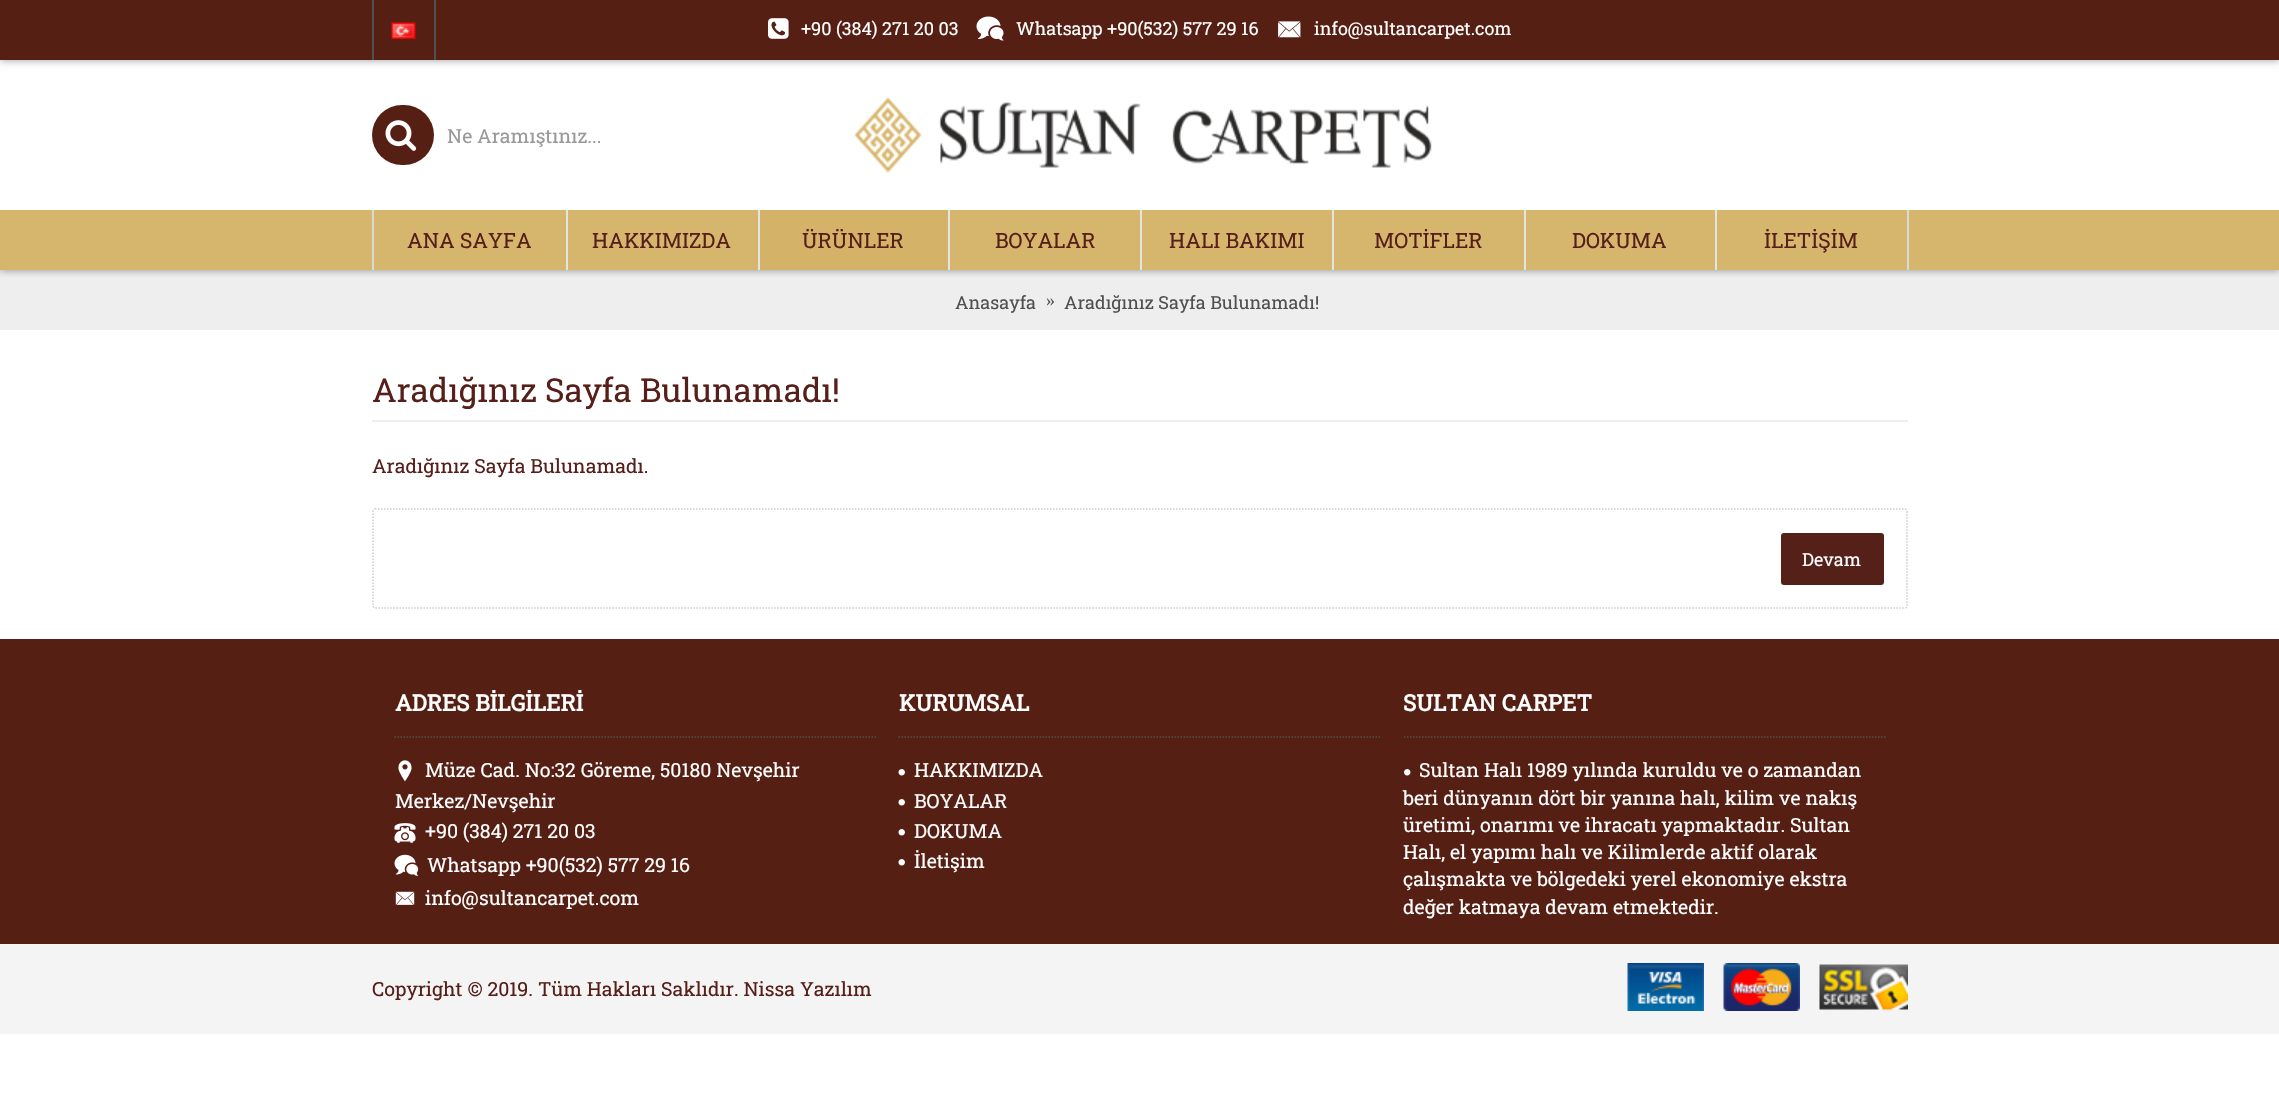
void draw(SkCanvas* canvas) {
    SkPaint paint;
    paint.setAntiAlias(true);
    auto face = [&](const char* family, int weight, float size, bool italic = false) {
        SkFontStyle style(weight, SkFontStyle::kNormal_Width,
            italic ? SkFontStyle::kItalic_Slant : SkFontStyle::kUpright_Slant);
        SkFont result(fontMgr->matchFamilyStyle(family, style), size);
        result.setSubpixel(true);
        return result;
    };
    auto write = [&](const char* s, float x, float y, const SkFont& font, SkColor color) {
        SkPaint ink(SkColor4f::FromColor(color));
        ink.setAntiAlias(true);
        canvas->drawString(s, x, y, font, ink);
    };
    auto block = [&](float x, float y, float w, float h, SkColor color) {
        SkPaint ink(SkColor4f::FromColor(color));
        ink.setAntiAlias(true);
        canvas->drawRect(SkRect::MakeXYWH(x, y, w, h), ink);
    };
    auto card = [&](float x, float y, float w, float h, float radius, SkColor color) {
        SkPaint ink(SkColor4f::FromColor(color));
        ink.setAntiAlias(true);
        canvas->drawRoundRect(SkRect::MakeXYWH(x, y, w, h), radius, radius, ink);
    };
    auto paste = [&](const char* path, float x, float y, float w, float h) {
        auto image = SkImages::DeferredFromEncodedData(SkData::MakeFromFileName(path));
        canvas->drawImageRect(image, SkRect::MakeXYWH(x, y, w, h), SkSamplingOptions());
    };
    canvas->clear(SK_ColorWHITE);
    block(0, 270, 2279, 60, SkColorSetRGB(238, 238, 238));
    canvas->save();
    canvas->clipRect(SkRect::MakeXYWH(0, 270, 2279, 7));
    paint.setColor(SkColorSetARGB(102, 0, 0, 0));
    paint.setMaskFilter(SkMaskFilter::MakeBlur(kNormal_SkBlurStyle, 4));
    canvas->drawRect(SkRect::MakeXYWH(0, 0, 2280, 270), paint);
    paint.setMaskFilter(nullptr);
    canvas->restore();
    paint.setMaskFilter(SkMaskFilter::MakeBlur(kNormal_SkBlurStyle, 4));
    canvas->drawRect(SkRect::MakeXYWH(0, 0, 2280, 60), paint);
    paint.setMaskFilter(nullptr);
    block(0, 0, 2279, 60, SkColorSetRGB(86, 31, 19));
    block(434, 0, 2, 60, SkColorSetRGB(80, 80, 80));
    block(372, 0, 2, 60, SkColorSetRGB(80, 80, 80));
    paste("pic1.png", 391, 22, 25, 17);
    paste("pic2.png", 768, 18, 21, 21);
    auto kFont1 = face("Roboto Slab", 400, 18);
    write("+90 (384) 271 20 03", 801, 35, kFont1, SK_ColorWHITE);
    paste("pic3.png", 976, 16, 28, 25);
    write("Whatsapp +90(532) 577 29 16", 1016, 35, kFont1, SK_ColorWHITE);
    paste("pic4.png", 1278, 21, 23, 17);
    write("info@sultancarpet.com", 1314, 35, kFont1, SK_ColorWHITE);
    card(372, 105, 62, 60, 30, SkColorSetRGB(86, 31, 19));
    paste("pic5.png", 385, 120, 32, 31);
    auto kFont2 = face("Roboto Slab", 400, 19.5f);
    write("Ne Aramıştınız...", 447, 143, kFont2, SkColorSetRGB(153, 153, 153));
    paste("pic6.png", 854, 97, 578, 76);
    block(0, 210, 2279, 60, SkColorSetRGB(214, 182, 109));
    block(1907, 210, 2, 60, SkColorSetRGB(217, 217, 217));
    block(372, 210, 2, 60, SkColorSetRGB(217, 217, 217));
    auto kFont3 = face("Roboto Slab", 400, 21);
    write("ANA SAYFA", 407, 248, kFont3, SkColorSetRGB(86, 31, 25));
    block(566, 210, 2, 60, SkColorSetRGB(228, 228, 228));
    write("HAKKIMIZDA", 592, 248, kFont3, SkColorSetRGB(86, 31, 25));
    block(760, 210, 188, 60, SkColorSetRGB(212, 179, 104));
    block(758, 210, 2, 60, SkColorSetRGB(228, 228, 228));
    write("ÜRÜNLER", 802, 248, kFont3, SkColorSetRGB(86, 31, 25));
    block(948, 210, 2, 60, SkColorSetRGB(228, 228, 228));
    write("BOYALAR", 995, 248, kFont3, SkColorSetRGB(86, 31, 25));
    block(1140, 210, 2, 60, SkColorSetRGB(228, 228, 228));
    write("HALI BAKIMI", 1169, 248, kFont3, SkColorSetRGB(86, 31, 25));
    block(1332, 210, 2, 60, SkColorSetRGB(228, 228, 228));
    write("MOTİFLER", 1374, 248, kFont3, SkColorSetRGB(86, 31, 25));
    block(1524, 210, 2, 60, SkColorSetRGB(228, 228, 228));
    write("DOKUMA", 1572, 248, kFont3, SkColorSetRGB(86, 31, 25));
    block(1715, 210, 2, 60, SkColorSetRGB(228, 228, 228));
    write("İLETİŞİM", 1764, 248, kFont3, SkColorSetRGB(86, 31, 25));
    write("Anasayfa", 955, 309, kFont1, SkColorSetRGB(80, 80, 80));
    auto kFont4 = face("Liberation Serif", 400, 18);
    write("»", 1046, 306, kFont4, SkColorSetRGB(80, 80, 80));
    write("Aradığınız Sayfa Bulunamadı!", 1064, 309, kFont1, SkColorSetRGB(80, 80, 80));
    block(372, 420, 1536, 2, SkColorSetRGB(238, 238, 238));
    auto kFont5 = face("Roboto Slab", 400, 33);
    write("Aradığınız Sayfa Bulunamadı!", 372, 402, kFont5, SkColorSetRGB(86, 31, 25));
    write("Aradığınız Sayfa Bulunamadı.", 372, 473, kFont2, SkColorSetRGB(86, 31, 25));
    paint.setStyle(SkPaint::kStroke_Style);
    paint.setStrokeWidth(1.5f);
    paint.setColor(SkColorSetRGB(204, 204, 204));
    paint.setPathEffect(SkDashPathEffect::Make({{1.5f, 1.5f}}, 0));
    canvas->drawPath(SkPathBuilder().moveTo(375, 509).lineTo(1905, 509).cubicTo(1906, 509, 1907, 510.5f, 1907, 511.5f).lineTo(1907, 606).cubicTo(1907, 607, 1906, 608, 1905, 608).lineTo(375, 608).cubicTo(374, 608, 373, 607, 373, 606).lineTo(373, 511.5f).cubicTo(373, 510.5f, 374, 509, 375, 509).close().detach(), paint);
    paint.setPathEffect(nullptr);
    card(1781, 533, 103, 52, 3, SkColorSetRGB(85, 32, 24));
    write("Devam", 1802, 566, kFont1, SK_ColorWHITE);
    block(0, 639, 2279, 305, SkColorSetRGB(86, 31, 19));
    paint.setColor(SkColorSetRGB(80, 80, 80));
    paint.setPathEffect(SkDashPathEffect::Make({{1.5f, 1.5f}}, 0));
    canvas->drawPath(SkPathBuilder().moveTo(394.5f, 737).lineTo(876, 737).detach(), paint);
    paint.setPathEffect(nullptr);
    auto kFont6 = face("Roboto Slab", 700, 22.5f);
    write("ADRES BİLGİLERİ", 395, 711, kFont6, SK_ColorWHITE);
    paste("pic7.png", 398, 760, 14, 22);
    write("Müze Cad. No:32 Göreme, 50180 Nevşehir", 425, 777, kFont2, SK_ColorWHITE);
    write("Merkez/Nevşehir", 395, 808, kFont2, SK_ColorWHITE);
    paste("pic8.png", 394, 823, 22, 20);
    write("+90 (384) 271 20 03", 425, 838, kFont2, SK_ColorWHITE);
    paste("pic9.png", 394, 854, 25, 22);
    write("Whatsapp +90(532) 577 29 16", 427, 872, kFont2, SK_ColorWHITE);
    paste("pic10.png", 395, 891, 20, 14);
    write("info@sultancarpet.com", 425, 905, kFont2, SK_ColorWHITE);
    paint.setPathEffect(SkDashPathEffect::Make({{1.5f, 1.5f}}, 0));
    canvas->drawPath(SkPathBuilder().moveTo(898.5f, 737).lineTo(1381.5f, 737).detach(), paint);
    paint.setPathEffect(nullptr);
    write("KURUMSAL", 899, 711, kFont6, SK_ColorWHITE);
    paste("pic11.png", 898, 769, 7, 7);
    write("HAKKIMIZDA", 914, 777, kFont2, SK_ColorWHITE);
    paste("pic11.png", 898, 799, 7, 7);
    write("BOYALAR", 914, 808, kFont2, SK_ColorWHITE);
    paste("pic11.png", 898, 829, 7, 7);
    write("DOKUMA", 914, 838, kFont2, SK_ColorWHITE);
    paste("pic11.png", 898, 859, 7, 7);
    write("İletişim", 914, 868, kFont2, SK_ColorWHITE);
    paint.setPathEffect(SkDashPathEffect::Make({{1.5f, 1.5f}}, 0));
    canvas->drawPath(SkPathBuilder().moveTo(1404, 737).lineTo(1885.5f, 737).detach(), paint);
    paint.setPathEffect(nullptr);
    write("SULTAN CARPET", 1403, 711, kFont6, SK_ColorWHITE);
    paste("pic12.png", 1404, 769, 7, 7);
    write("Sultan Halı 1989 yılında kuruldu ve o zamandan", 1419, 777, kFont2, SK_ColorWHITE);
    write("beri dünyanın dört bir yanına halı, kilim ve nakış", 1403, 805, kFont2, SK_ColorWHITE);
    write("üretimi, onarımı ve ihracatı yapmaktadır. Sultan", 1403, 832, kFont2, SK_ColorWHITE);
    write("Halı, el yapımı halı ve Kilimlerde aktif olarak", 1403, 859, kFont2, SK_ColorWHITE);
    write("çalışmakta ve bölgedeki yerel ekonomiye ekstra", 1403, 886, kFont2, SK_ColorWHITE);
    write("değer katmaya devam etmektedir.", 1403, 914, kFont2, SK_ColorWHITE);
    block(0, 944, 2279, 90, SkColorSetRGB(244, 244, 244));
    write("Copyright © 2019. Tüm Hakları Saklıdır. Nissa Yazılım", 372, 996, kFont2, SkColorSetRGB(86, 31, 25));
    paste("pic13.png", 1627, 963, 77, 48);
    paste("pic14.png", 1723, 963, 77, 48);
    paste("pic15.png", 1819, 964, 89, 46);
}
